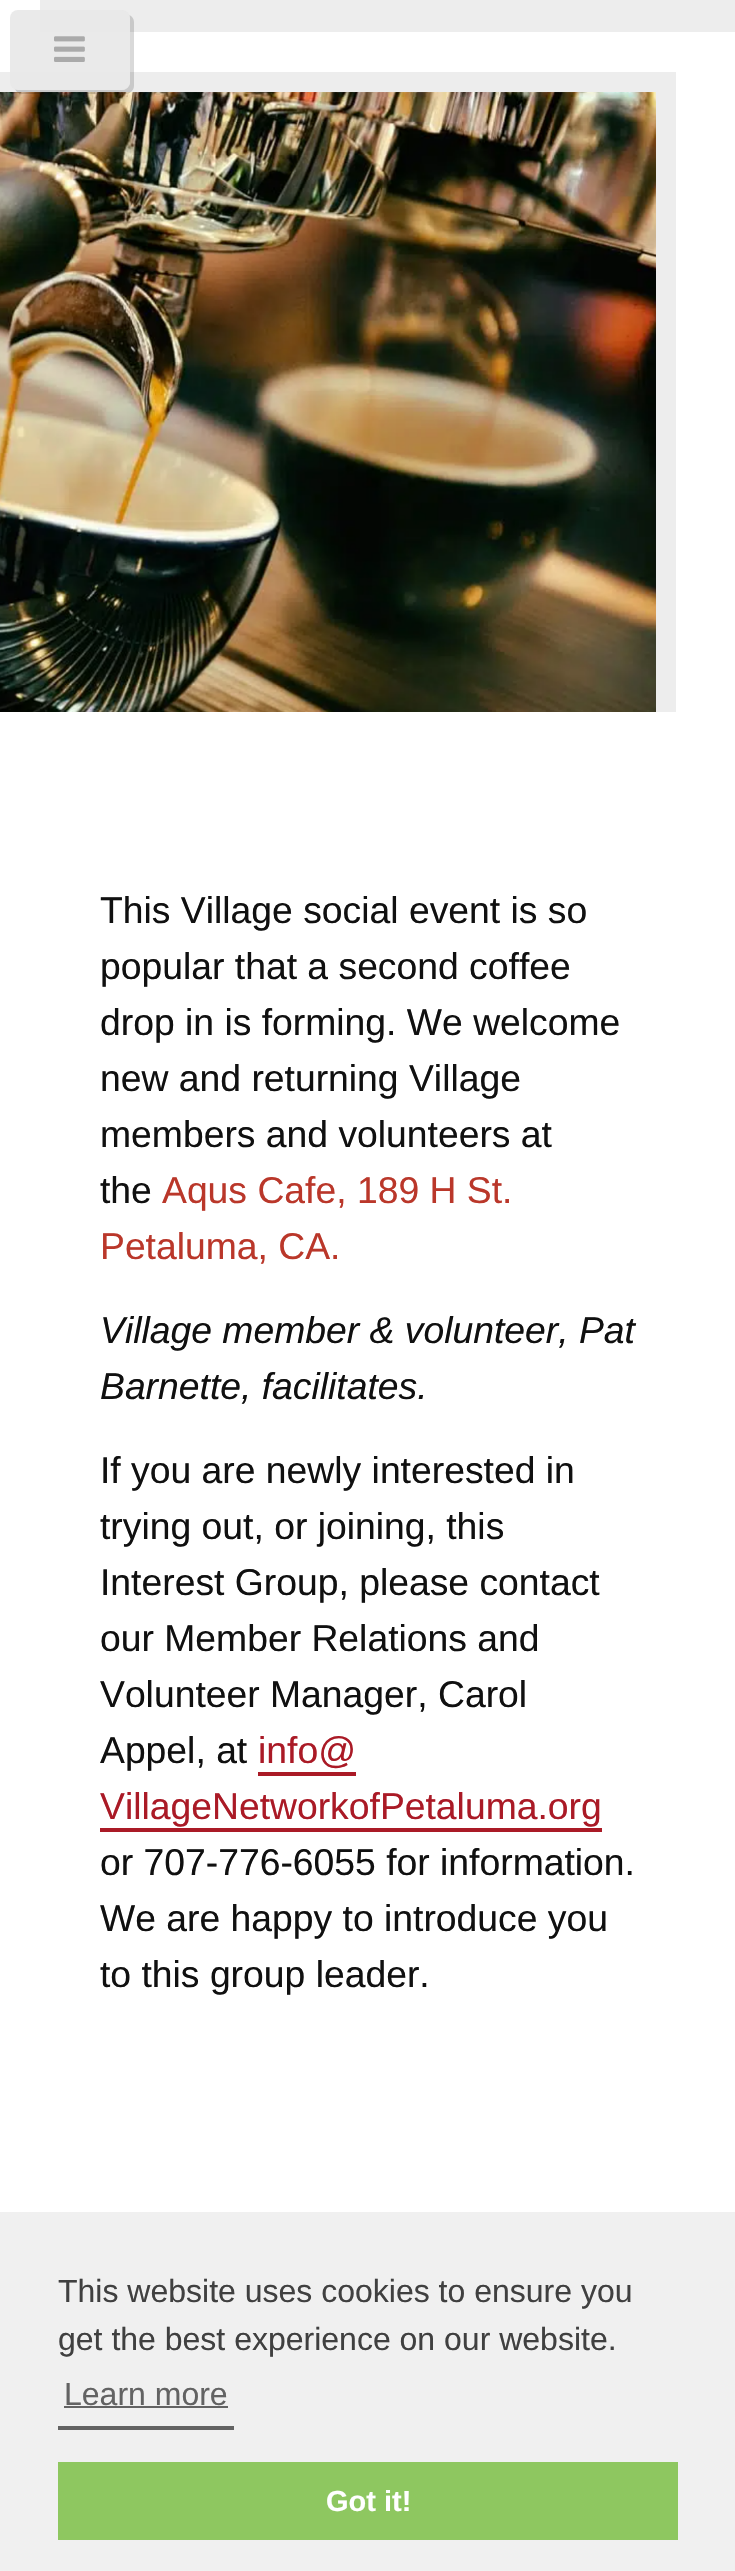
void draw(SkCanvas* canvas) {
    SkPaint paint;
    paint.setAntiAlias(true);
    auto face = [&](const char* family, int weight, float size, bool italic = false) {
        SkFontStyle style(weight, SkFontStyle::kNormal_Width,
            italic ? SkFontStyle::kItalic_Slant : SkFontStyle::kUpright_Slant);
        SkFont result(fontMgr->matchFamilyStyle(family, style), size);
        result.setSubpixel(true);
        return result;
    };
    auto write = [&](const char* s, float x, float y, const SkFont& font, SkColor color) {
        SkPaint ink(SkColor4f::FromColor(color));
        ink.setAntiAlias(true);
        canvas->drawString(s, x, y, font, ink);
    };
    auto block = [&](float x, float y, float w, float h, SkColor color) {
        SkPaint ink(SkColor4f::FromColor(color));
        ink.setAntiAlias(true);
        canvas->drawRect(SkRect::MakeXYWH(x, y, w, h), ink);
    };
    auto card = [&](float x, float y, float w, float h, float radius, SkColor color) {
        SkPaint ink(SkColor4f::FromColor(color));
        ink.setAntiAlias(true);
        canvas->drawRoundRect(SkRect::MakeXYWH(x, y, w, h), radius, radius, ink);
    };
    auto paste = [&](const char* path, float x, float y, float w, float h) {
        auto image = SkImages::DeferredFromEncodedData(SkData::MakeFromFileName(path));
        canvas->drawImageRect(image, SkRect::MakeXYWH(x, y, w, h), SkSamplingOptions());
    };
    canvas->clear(SkColorSetRGB(240, 240, 240));
    block(0, 0, 735, 2212, SK_ColorWHITE);
    block(40, 0, 695, 32, SkColorSetRGB(237, 237, 237));
    block(0, 72, 676, 640, SkColorSetRGB(237, 237, 237));
    paste("pic2.png", 0, 92, 656, 620);
    paint.setColor(SkColorSetARGB(38, 0, 0, 0));
    canvas->drawPath(SkPathBuilder().moveTo(15, 89).cubicTo(16, 92, 19, 94, 22, 94).lineTo(126, 94).cubicTo(130, 94, 134, 90, 134, 86).lineTo(134, 22).cubicTo(134, 19, 132, 16, 129, 15).lineTo(130, 18).lineTo(130, 82).cubicTo(130, 86, 126, 90, 122, 90).lineTo(18, 90).close().detach(), paint);
    card(10, 10, 120, 80, 8, SkColorSetARGB(230, 232, 232, 232));
    paste("pic1.png", 54, 36, 31, 26);
    auto kFont1 = face("Liberation Sans", 400, 37.3f);
    write("This Village social event is so", 100, 923, kFont1, SkColorSetRGB(16, 16, 16));
    write("popular that a second coffee", 100, 979, kFont1, SkColorSetRGB(16, 16, 16));
    write("drop in is forming. We welcome", 100, 1035, kFont1, SkColorSetRGB(16, 16, 16));
    write("new and returning Village", 100, 1091, kFont1, SkColorSetRGB(16, 16, 16));
    write("members and volunteers at", 100, 1147, kFont1, SkColorSetRGB(16, 16, 16));
    write("the", 100, 1203, kFont1, SkColorSetRGB(16, 16, 16));
    write("Aqus Cafe, 189 H St.", 162, 1203, kFont1, SkColorSetRGB(186, 55, 42));
    write("Petaluma, CA.", 100, 1259, kFont1, SkColorSetRGB(186, 55, 42));
    auto kFont2 = face("Liberation Sans", 400, 37.3f, true);
    write("Village member & volunteer, Pat", 100, 1343, kFont2, SkColorSetRGB(16, 16, 16));
    write("Barnette, facilitates.", 100, 1399, kFont2, SkColorSetRGB(16, 16, 16));
    write("If you are newly interested in", 100, 1483, kFont1, SkColorSetRGB(16, 16, 16));
    write("trying out, or joining, this", 100, 1539, kFont1, SkColorSetRGB(16, 16, 16));
    write("Interest Group, please contact", 100, 1595, kFont1, SkColorSetRGB(16, 16, 16));
    write("our Member Relations and", 100, 1651, kFont1, SkColorSetRGB(16, 16, 16));
    write("Volunteer Manager, Carol", 100, 1707, kFont1, SkColorSetRGB(16, 16, 16));
    write("Appel, at", 100, 1763, kFont1, SkColorSetRGB(16, 16, 16));
    write("info@", 258, 1763, kFont1, SkColorSetRGB(170, 26, 38));
    block(258, 1772, 98, 4, SkColorSetRGB(170, 26, 38));
    write("VillageNetworkofPetaluma.org", 100, 1819, kFont1, SkColorSetRGB(170, 26, 38));
    block(100, 1828, 502, 4, SkColorSetRGB(170, 26, 38));
    write("or 707-776-6055 for information.", 100, 1875, kFont1, SkColorSetRGB(16, 16, 16));
    write("We are happy to introduce you", 100, 1931, kFont1, SkColorSetRGB(16, 16, 16));
    write("to this group leader.", 100, 1987, kFont1, SkColorSetRGB(16, 16, 16));
    auto kFont3 = face("Liberation Sans", 400, 32);
    write("This website uses cookies to ensure you", 58, 2302, kFont3, SkColorSetRGB(64, 64, 64));
    write("get the best experience on our website.", 58, 2350, kFont3, SkColorSetRGB(64, 64, 64));
    block(58, 2426, 176, 4, SkColorSetRGB(99, 99, 99));
    write("Learn more", 64, 2405, kFont3, SkColorSetRGB(99, 99, 99));
    block(64, 2406, 164, 2, SkColorSetRGB(99, 99, 99));
    block(58, 2462, 620, 78, SkColorSetRGB(142, 199, 96));
    auto kFont4 = face("Liberation Sans", 700, 29);
    write("Got it!", 326, 2511, kFont4, SK_ColorWHITE);
}
